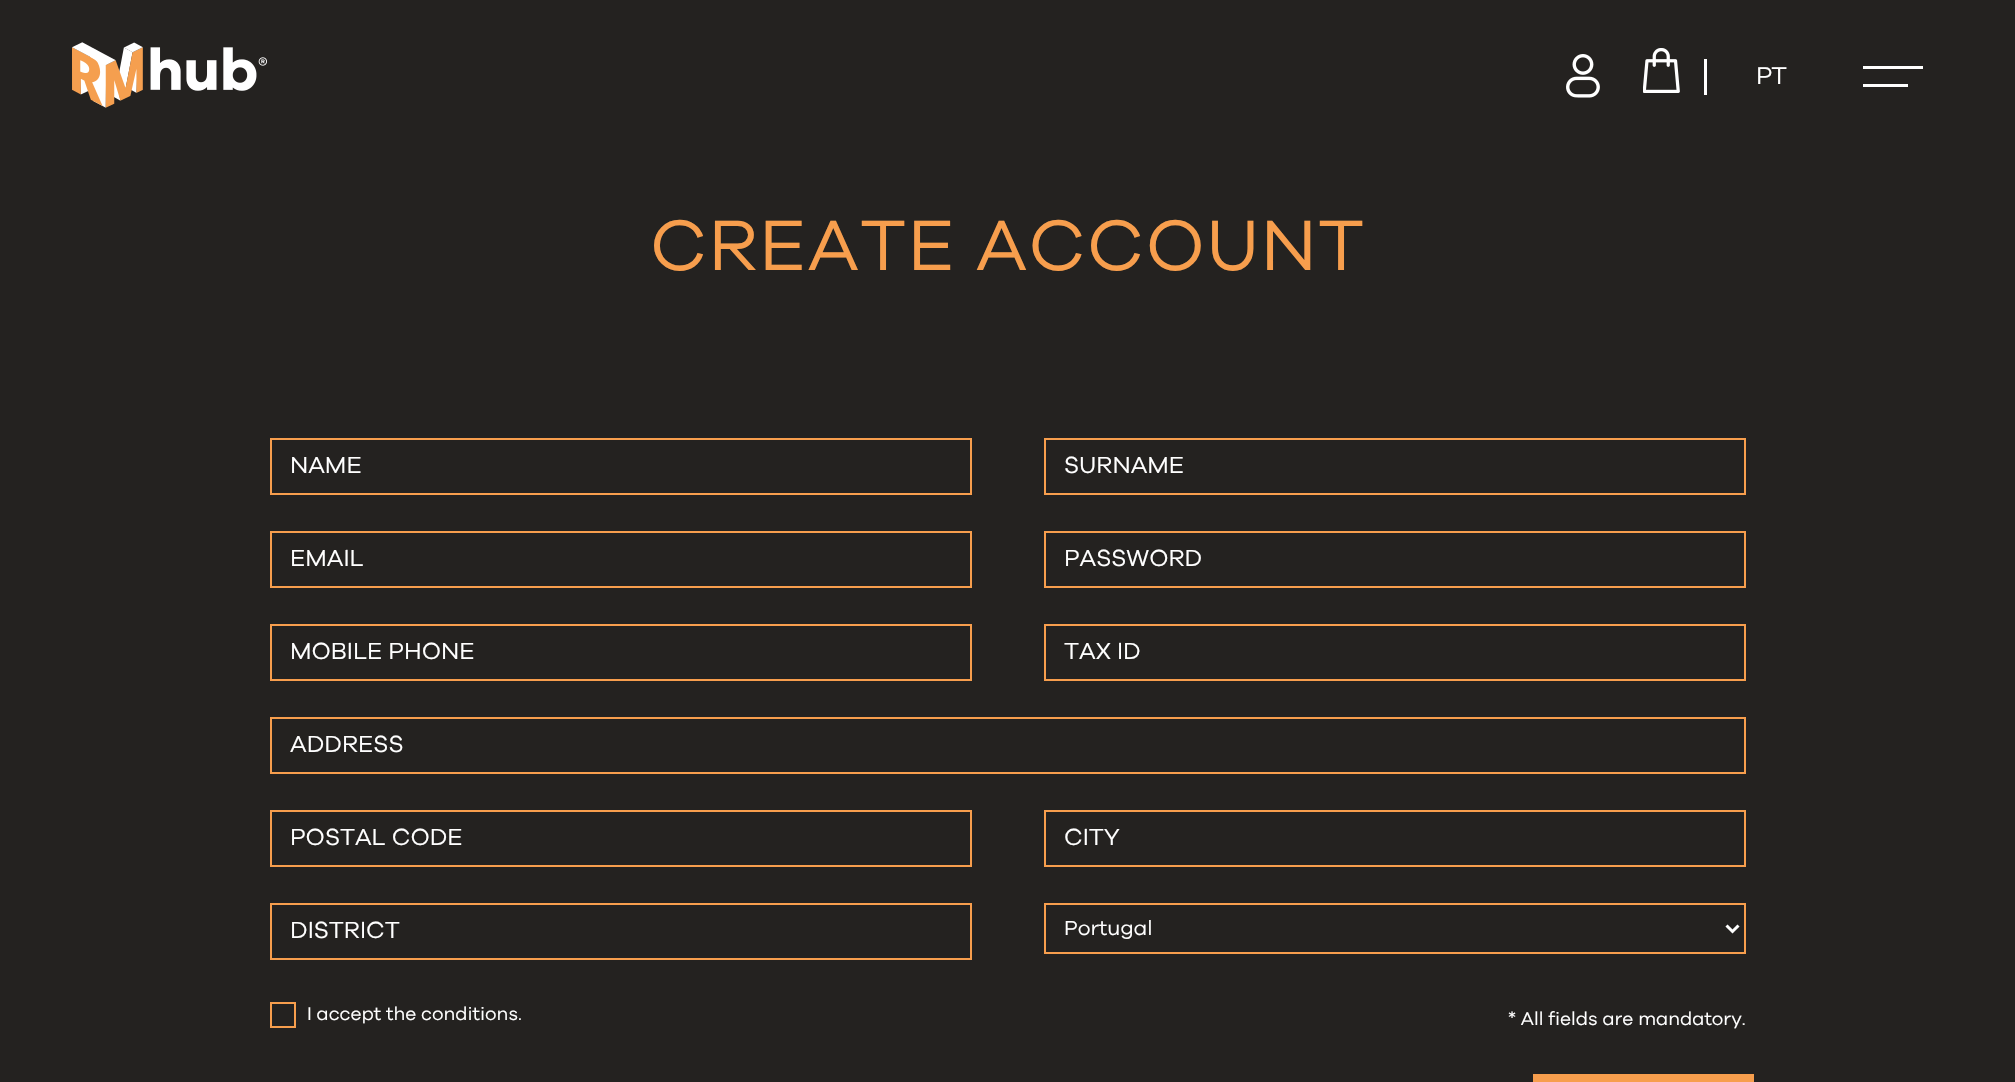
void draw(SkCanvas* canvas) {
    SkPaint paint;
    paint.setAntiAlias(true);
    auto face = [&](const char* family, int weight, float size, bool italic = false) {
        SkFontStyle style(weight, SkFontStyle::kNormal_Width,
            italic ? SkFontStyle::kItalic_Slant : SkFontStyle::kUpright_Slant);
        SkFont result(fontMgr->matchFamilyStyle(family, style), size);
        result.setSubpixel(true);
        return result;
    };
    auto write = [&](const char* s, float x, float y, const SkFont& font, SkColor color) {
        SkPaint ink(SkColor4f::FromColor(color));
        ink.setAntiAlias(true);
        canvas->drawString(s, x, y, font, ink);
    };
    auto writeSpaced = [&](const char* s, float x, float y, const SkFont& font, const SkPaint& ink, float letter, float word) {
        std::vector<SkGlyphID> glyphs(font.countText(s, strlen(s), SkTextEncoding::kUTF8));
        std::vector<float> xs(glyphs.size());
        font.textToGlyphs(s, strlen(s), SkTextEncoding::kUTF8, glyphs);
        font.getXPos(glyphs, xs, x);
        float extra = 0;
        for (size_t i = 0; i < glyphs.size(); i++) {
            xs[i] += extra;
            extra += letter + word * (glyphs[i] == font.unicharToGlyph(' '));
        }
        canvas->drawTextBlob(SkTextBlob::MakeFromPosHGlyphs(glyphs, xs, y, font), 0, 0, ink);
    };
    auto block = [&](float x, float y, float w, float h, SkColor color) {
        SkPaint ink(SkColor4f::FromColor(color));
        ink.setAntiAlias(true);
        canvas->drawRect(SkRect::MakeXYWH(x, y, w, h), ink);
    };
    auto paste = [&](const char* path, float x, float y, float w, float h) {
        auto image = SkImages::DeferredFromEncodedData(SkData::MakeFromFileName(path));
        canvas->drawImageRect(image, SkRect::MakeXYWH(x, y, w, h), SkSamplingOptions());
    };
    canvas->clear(SkColorSetRGB(36, 34, 32));
    paste("pic1.png", 72, 42, 195, 66);
    paste("pic2.png", 1566, 54, 34, 44);
    paste("pic3.png", 1643, 48, 37, 45);
    block(1704, 59, 3, 36, SK_ColorWHITE);
    auto kFont1 = face("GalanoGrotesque", 400, 25);
    paint.setColor(SK_ColorWHITE);
    writeSpaced("PT", 1756, 84, kFont1, paint, -1, 0);
    block(1863, 66, 60, 3, SK_ColorWHITE);
    block(1863, 84, 45, 3, SK_ColorWHITE);
    auto kFont2 = face("GalanoGrotesque", 400, 73.5f);
    paint.setColor(SkColorSetRGB(247, 158, 77));
    writeSpaced("CREATE ACCOUNT", 650, 270, kFont2, paint, 1.5f, 0);
    paint.setStyle(SkPaint::kStroke_Style);
    paint.setStrokeWidth(2);
    canvas->drawRect(SkRect::MakeXYWH(271, 439, 700, 55), paint);
    auto kFont3 = face("GalanoGrotesque", 400, 24);
    write("NAME", 290, 473, kFont3, SK_ColorWHITE);
    canvas->drawRect(SkRect::MakeXYWH(1045, 439, 700, 55), paint);
    write("SURNAME", 1064, 473, kFont3, SK_ColorWHITE);
    canvas->drawRect(SkRect::MakeXYWH(271, 532, 700, 55), paint);
    write("EMAIL", 290, 566, kFont3, SK_ColorWHITE);
    canvas->drawRect(SkRect::MakeXYWH(1045, 532, 700, 55), paint);
    write("PASSWORD", 1064, 566, kFont3, SK_ColorWHITE);
    canvas->drawRect(SkRect::MakeXYWH(271, 625, 700, 55), paint);
    write("MOBILE PHONE", 290, 659, kFont3, SK_ColorWHITE);
    canvas->drawRect(SkRect::MakeXYWH(1045, 625, 700, 55), paint);
    write("TAX ID", 1064, 659, kFont3, SK_ColorWHITE);
    canvas->drawRect(SkRect::MakeXYWH(271, 718, 1474, 55), paint);
    write("ADDRESS", 290, 752, kFont3, SK_ColorWHITE);
    canvas->drawRect(SkRect::MakeXYWH(271, 811, 700, 55), paint);
    write("POSTAL CODE", 290, 845, kFont3, SK_ColorWHITE);
    canvas->drawRect(SkRect::MakeXYWH(1045, 811, 700, 55), paint);
    write("CITY", 1064, 845, kFont3, SK_ColorWHITE);
    canvas->drawRect(SkRect::MakeXYWH(271, 904, 700, 55), paint);
    write("DISTRICT", 290, 938, kFont3, SK_ColorWHITE);
    canvas->drawRect(SkRect::MakeXYWH(1045, 904, 700, 49), paint);
    paint.setStrokeWidth(3);
    paint.setColor(SK_ColorWHITE);
    canvas->drawPath(SkPathBuilder().moveTo(1726.5f, 925.5f).lineTo(1732.5f, 931.5f).lineTo(1738.5f, 925.5f).detach(), paint);
    auto kFont4 = face("GalanoGrotesque", 400, 21);
    write("Portugal", 1064, 935, kFont4, SK_ColorWHITE);
    paint.setStrokeWidth(2);
    paint.setColor(SkColorSetRGB(247, 158, 77));
    canvas->drawRect(SkRect::MakeXYWH(271, 1003, 24, 24), paint);
    auto kFont5 = face("GalanoGrotesque", 400, 18.9f);
    write("I accept the conditions.", 307, 1020, kFont5, SK_ColorWHITE);
    write("* All fields are mandatory.", 1508, 1025, kFont5, SK_ColorWHITE);
    block(1533, 1074, 221, 8, SkColorSetRGB(247, 158, 77));
}
